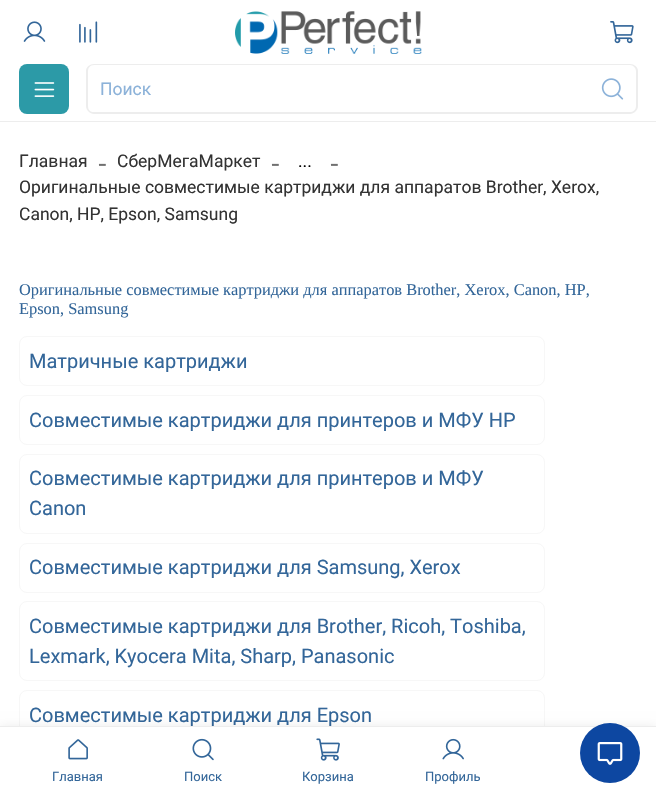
void draw(SkCanvas* canvas) {
    SkPaint paint;
    paint.setAntiAlias(true);
    auto face = [&](const char* family, int weight, float size, bool italic = false) {
        SkFontStyle style(weight, SkFontStyle::kNormal_Width,
            italic ? SkFontStyle::kItalic_Slant : SkFontStyle::kUpright_Slant);
        SkFont result(fontMgr->matchFamilyStyle(family, style), size);
        result.setSubpixel(true);
        return result;
    };
    auto write = [&](const char* s, float x, float y, const SkFont& font, SkColor color) {
        SkPaint ink(SkColor4f::FromColor(color));
        ink.setAntiAlias(true);
        canvas->drawString(s, x, y, font, ink);
    };
    auto block = [&](float x, float y, float w, float h, SkColor color) {
        SkPaint ink(SkColor4f::FromColor(color));
        ink.setAntiAlias(true);
        canvas->drawRect(SkRect::MakeXYWH(x, y, w, h), ink);
    };
    auto card = [&](float x, float y, float w, float h, float radius, SkColor color) {
        SkPaint ink(SkColor4f::FromColor(color));
        ink.setAntiAlias(true);
        canvas->drawRoundRect(SkRect::MakeXYWH(x, y, w, h), radius, radius, ink);
    };
    auto paste = [&](const char* path, float x, float y, float w, float h) {
        auto image = SkImages::DeferredFromEncodedData(SkData::MakeFromFileName(path));
        canvas->drawImageRect(image, SkRect::MakeXYWH(x, y, w, h), SkSamplingOptions());
    };
    canvas->clear(SK_ColorWHITE);
    block(0, 121, 656, 1, SkColorSetRGB(237, 237, 237));
    paste("pic1.png", 23, 21, 23, 21);
    paste("pic2.png", 79, 21, 19, 22);
    paste("pic3.png", 235, 11, 187, 43);
    paste("pic4.png", 610, 21, 24, 23);
    card(19, 64, 50, 50, 8, SkColorSetRGB(44, 154, 167));
    paste("pic5.png", 34, 82, 21, 15);
    paint.setColor(SkColorSetRGB(237, 237, 237));
    canvas->drawPath(SkPathBuilder(SkPathFillType::kEvenOdd).moveTo(94, 64).lineTo(588, 64).lineTo(588, 114).lineTo(94, 114).cubicTo(90, 114, 86, 110, 86, 106).lineTo(86, 71).cubicTo(86, 67, 90, 64, 94, 64).close().moveTo(94, 65).lineTo(588, 65).lineTo(588, 112).lineTo(94, 112).cubicTo(90, 112, 88, 110, 88, 106).lineTo(88, 71).cubicTo(88, 68, 90, 65, 94, 65).close().detach(), paint);
    auto kFont1 = face("Roboto", 400, 17.5f);
    write("Поиск", 100, 95, kFont1, SkColorSetRGB(140, 178, 217));
    canvas->drawPath(SkPathBuilder(SkPathFillType::kEvenOdd).moveTo(588, 64).lineTo(630, 64).cubicTo(634, 64, 638, 67, 638, 71).lineTo(638, 106).cubicTo(638, 110, 634, 114, 630, 114).lineTo(588, 114).close().moveTo(588, 65).lineTo(630, 65).cubicTo(633, 65, 636, 68, 636, 71).lineTo(636, 106).cubicTo(636, 110, 633, 112, 630, 112).lineTo(588, 112).close().detach(), paint);
    paste("pic6.png", 601, 78, 23, 22);
    write("Главная", 19, 167, kFont1, SkColorSetRGB(51, 51, 51));
    auto kFont2 = face("Liberation Serif", 400, 26);
    write("-", 98, 171, kFont2, SkColorSetRGB(112, 112, 112));
    write("СберМегаМаркет", 117, 167, kFont1, SkColorSetRGB(51, 51, 51));
    write("-", 271, 171, kFont2, SkColorSetRGB(112, 112, 112));
    write("-", 330, 171, kFont2, SkColorSetRGB(112, 112, 112));
    write("...", 298, 167, kFont1, SK_ColorBLACK);
    write("Оригинальные совместимые картриджи для аппаратов Brother, Xerox,", 19, 193, kFont1, SkColorSetRGB(51, 51, 51));
    write("Canon, HP, Epson, Samsung", 19, 220, kFont1, SkColorSetRGB(51, 51, 51));
    auto kFont3 = face("Liberation Serif", 400, 16.4f);
    write("Оригинальные совместимые картриджи для аппаратов Brother, Xerox, Canon, HP,", 19, 295, kFont3, SkColorSetRGB(51, 102, 153));
    write("Epson, Samsung", 19, 314, kFont3, SkColorSetRGB(51, 102, 153));
    paint.setStyle(SkPaint::kStroke_Style);
    paint.setStrokeWidth(1);
    paint.setColor(SkColorSetRGB(247, 247, 247));
    canvas->drawRoundRect(SkRect::MakeXYWH(19.5f, 336.5f, 525, 49), 7.5f, 7.5f, paint);
    auto kFont4 = face("Roboto", 400, 20);
    write("Матричные картриджи", 29, 368, kFont4, SkColorSetRGB(51, 102, 153));
    canvas->drawRoundRect(SkRect::MakeXYWH(19.5f, 395.5f, 525, 49), 7.5f, 7.5f, paint);
    write("Совместимые картриджи для принтеров и МФУ HP", 29, 427, kFont4, SkColorSetRGB(51, 102, 153));
    canvas->drawRoundRect(SkRect::MakeXYWH(19.5f, 454.5f, 525, 79), 7.5f, 7.5f, paint);
    write("Совместимые картриджи для принтеров и МФУ", 29, 485, kFont4, SkColorSetRGB(51, 102, 153));
    write("Canon", 29, 515, kFont4, SkColorSetRGB(51, 102, 153));
    canvas->drawRoundRect(SkRect::MakeXYWH(19.5f, 543.5f, 525, 49), 7.5f, 7.5f, paint);
    write("Совместимые картриджи для Samsung, Xerox", 29, 574, kFont4, SkColorSetRGB(51, 102, 153));
    canvas->drawRoundRect(SkRect::MakeXYWH(19.5f, 601.5f, 525, 79), 7.5f, 7.5f, paint);
    write("Совместимые картриджи для Brother, Ricoh, Toshiba,", 29, 633, kFont4, SkColorSetRGB(51, 102, 153));
    write("Lexmark, Kyocera Mita, Sharp, Panasonic", 29, 663, kFont4, SkColorSetRGB(51, 102, 153));
    canvas->drawRoundRect(SkRect::MakeXYWH(19.5f, 690.5f, 525, 49), 7.5f, 7.5f, paint);
    write("Совместимые картриджи для Epson", 29, 722, kFont4, SkColorSetRGB(51, 102, 153));
    paint.setStyle(SkPaint::kFill_Style);
    paint.setColor(SkColorSetARGB(31, 0, 0, 0));
    paint.setMaskFilter(SkMaskFilter::MakeBlur(kNormal_SkBlurStyle, 6));
    canvas->drawRect(SkRect::MakeXYWH(0, 729, 656, 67), paint);
    paint.setMaskFilter(nullptr);
    block(0, 727, 656, 66, SK_ColorWHITE);
    block(0, 726, 656, 1, SkColorSetRGB(237, 237, 237));
    paste("pic7.png", 68, 739, 20, 21);
    auto kFont5 = face("Roboto", 400, 13);
    write("Главная", 52, 781, kFont5, SkColorSetRGB(51, 102, 153));
    paste("pic8.png", 192, 738, 22, 23);
    write("Поиск", 184, 781, kFont5, SkColorSetRGB(51, 102, 153));
    paste("pic9.png", 316, 738, 24, 23);
    write("Корзина", 302, 781, kFont5, SkColorSetRGB(51, 102, 153));
    paste("pic10.png", 442, 738, 22, 22);
    write("Профиль", 425, 781, kFont5, SkColorSetRGB(51, 102, 153));
    paint.setColor(SkColorSetRGB(13, 71, 161));
    canvas->drawCircle(610, 753, 30, paint);
    paste("pic11.png", 597, 742, 26, 23);
}
